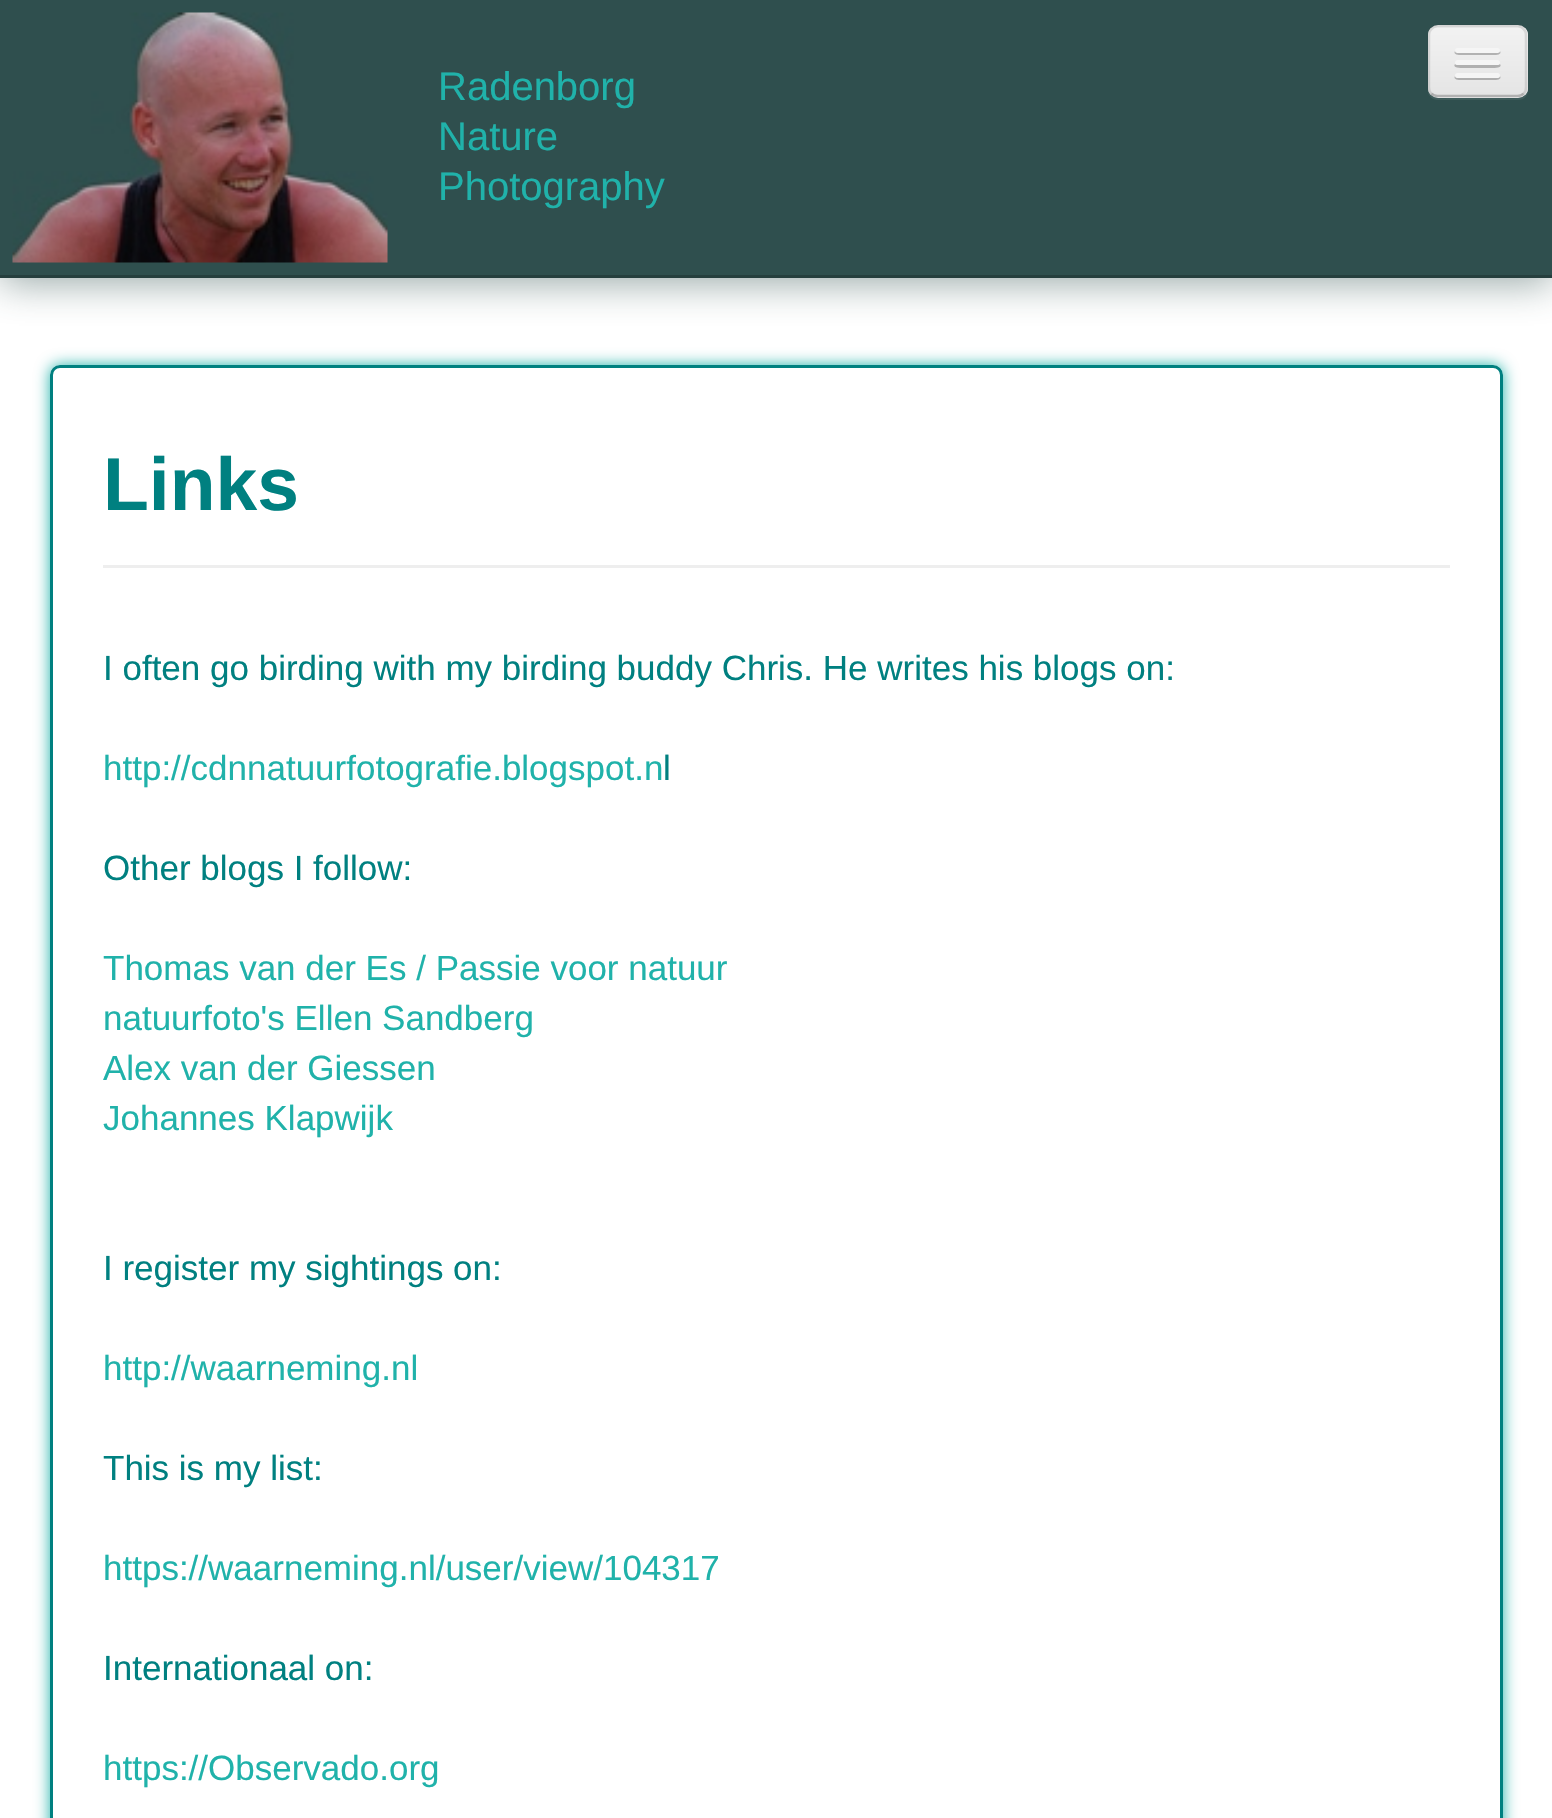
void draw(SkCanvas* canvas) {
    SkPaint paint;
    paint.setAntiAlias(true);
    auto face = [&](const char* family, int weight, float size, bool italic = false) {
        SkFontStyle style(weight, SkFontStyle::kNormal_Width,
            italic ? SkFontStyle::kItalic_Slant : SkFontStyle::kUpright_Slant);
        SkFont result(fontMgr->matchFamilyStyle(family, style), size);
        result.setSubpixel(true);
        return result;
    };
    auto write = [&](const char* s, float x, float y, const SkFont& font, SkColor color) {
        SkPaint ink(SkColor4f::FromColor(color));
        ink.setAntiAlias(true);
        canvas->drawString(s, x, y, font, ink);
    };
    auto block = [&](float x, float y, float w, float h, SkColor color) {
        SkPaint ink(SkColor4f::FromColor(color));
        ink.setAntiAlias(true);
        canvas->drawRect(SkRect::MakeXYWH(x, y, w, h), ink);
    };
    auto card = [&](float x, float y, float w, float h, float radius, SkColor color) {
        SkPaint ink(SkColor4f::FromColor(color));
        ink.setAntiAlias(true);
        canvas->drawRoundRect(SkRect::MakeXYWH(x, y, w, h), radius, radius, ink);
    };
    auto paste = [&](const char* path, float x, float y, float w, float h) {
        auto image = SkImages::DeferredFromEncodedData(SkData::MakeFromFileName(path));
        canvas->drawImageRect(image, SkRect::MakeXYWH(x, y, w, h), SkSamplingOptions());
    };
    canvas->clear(SK_ColorWHITE);
    paint.setColor(SkColorSetARGB(128, 47, 79, 78));
    paint.setMaskFilter(SkMaskFilter::MakeBlur(kNormal_SkBlurStyle, 19));
    canvas->drawRect(SkRect::MakeXYWH(0, 5, 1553, 278), paint);
    paint.setMaskFilter(nullptr);
    block(0, 0, 1552, 275, SkColorSetRGB(47, 79, 78));
    block(0, 275, 1552, 3, SkColorSetRGB(38, 63, 62));
    paste("pic1.png", 12, 12, 376, 251);
    paint.setColor(SkColorSetRGB(63, 92, 91));
    canvas->drawPath(SkPathBuilder().moveTo(1428, 91).cubicTo(1428, 96, 1433, 100, 1438, 100).lineTo(1518, 100).cubicTo(1524, 100, 1528, 96, 1528, 90).lineTo(1528, 38).lineTo(1527, 35).lineTo(1527, 90).lineTo(1526, 93).cubicTo(1521, 100, 1510, 98, 1504, 98).lineTo(1451, 98).cubicTo(1444, 98, 1431, 100, 1428, 91).close().detach(), paint);
    card(1428, 25, 100, 73, 10, SkColorSetRGB(237, 237, 237));
    canvas->save();
    canvas->clipPath(SkPathBuilder().moveTo(1438, 25).lineTo(1518, 25).cubicTo(1523.5f, 25, 1528, 29.5f, 1528, 35).lineTo(1528, 88).cubicTo(1528, 93.5f, 1523.5f, 98, 1518, 98).lineTo(1438, 98).cubicTo(1432.5f, 98, 1428, 93.5f, 1428, 88).lineTo(1428, 35).cubicTo(1428, 29.5f, 1432.5f, 25, 1438, 25).close().detach(), true);
    {
        const SkColor colors[] = {SkColorSetRGB(242, 242, 242), SkColorSetRGB(229, 229, 229)};
        const float stops[] = {0, 1};
        const SkPoint ends[] = {{1478, 27}, {1478, 95}};
        paint.setShader(SkGradientShader::MakeLinear(ends, colors, stops, 2, SkTileMode::kClamp));
        paint.setAlpha(255);
    }
    canvas->drawRect(SkRect::MakeXYWH(1428, 28, 100, 67), paint);
    canvas->restore();
    paint.setStyle(SkPaint::kStroke_Style);
    paint.setStrokeWidth(2.5f);
    paint.setShader(nullptr);
    paint.setColor(SkColorSetARGB(64, 0, 0, 0));
    canvas->drawPath(SkPathBuilder().moveTo(1523.5f, 93.5f).cubicTo(1522, 95.5f, 1520, 96, 1517.5f, 96).lineTo(1437.5f, 96).cubicTo(1435, 96, 1433, 95.5f, 1431.5f, 93.5f).detach(), paint);
    paint.setColor(SkColorSetARGB(26, 0, 0, 0));
    canvas->drawPath(SkPathBuilder().moveTo(1431.5f, 93.5f).cubicTo(1429.5f, 92, 1429, 90, 1429, 87.5f).lineTo(1429, 35).cubicTo(1429, 32.5f, 1429.5f, 30.5f, 1431.5f, 29).cubicTo(1433, 27, 1435, 26, 1437.5f, 26).lineTo(1517.5f, 26).cubicTo(1520, 26, 1522, 27, 1523.5f, 29).cubicTo(1525.5f, 30.5f, 1526, 32.5f, 1526, 35).lineTo(1526, 87.5f).cubicTo(1526, 90, 1525.5f, 92, 1523.5f, 93.5f).detach(), paint);
    paint.setStyle(SkPaint::kFill_Style);
    paint.setColor(SkColorSetRGB(178, 178, 178));
    canvas->drawPath(SkPathBuilder().moveTo(1455, 51).cubicTo(1452, 56, 1464, 55, 1464, 55).lineTo(1491, 55).cubicTo(1491, 55, 1503, 56, 1500, 51).cubicTo(1499, 52, 1498, 52, 1498, 52).lineTo(1458, 52).cubicTo(1457, 52, 1456, 52, 1455, 51).close().detach(), paint);
    card(1455, 48, 45, 5, 2.5f, SkColorSetRGB(245, 245, 245));
    paint.setColor(SkColorSetRGB(176, 176, 176));
    canvas->drawPath(SkPathBuilder().moveTo(1455, 64).cubicTo(1452, 68, 1460, 68, 1464, 68).lineTo(1491, 68).cubicTo(1495, 68, 1503, 68, 1500, 64).lineTo(1498, 65).lineTo(1457, 65).close().detach(), paint);
    card(1455, 60, 45, 5, 2.5f, SkColorSetRGB(245, 245, 245));
    paint.setColor(SkColorSetRGB(174, 174, 174));
    canvas->drawPath(SkPathBuilder().moveTo(1455, 76).cubicTo(1452, 81, 1464, 80, 1464, 80).lineTo(1491, 80).cubicTo(1491, 80, 1503, 81, 1500, 76).cubicTo(1499, 77, 1498, 78, 1498, 78).lineTo(1458, 78).cubicTo(1457, 78, 1456, 77, 1455, 76).close().detach(), paint);
    card(1455, 73, 45, 5, 2.5f, SkColorSetRGB(245, 245, 245));
    auto kFont1 = face("Liberation Sans", 400, 40);
    write("Radenborg", 438, 100, kFont1, SkColorSetRGB(32, 178, 170));
    write("Nature", 438, 150, kFont1, SkColorSetRGB(32, 178, 170));
    write("Photography", 438, 200, kFont1, SkColorSetRGB(32, 178, 170));
    canvas->save();
    canvas->clipPath(SkPathBuilder(SkPathFillType::kEvenOdd).moveTo(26, 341).lineTo(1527, 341).lineTo(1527, 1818).lineTo(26, 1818).close().moveTo(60, 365).lineTo(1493, 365).cubicTo(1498.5f, 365, 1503, 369.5f, 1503, 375).lineTo(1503, 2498).cubicTo(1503, 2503.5f, 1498.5f, 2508, 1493, 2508).lineTo(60, 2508).cubicTo(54.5f, 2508, 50, 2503.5f, 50, 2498).lineTo(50, 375).cubicTo(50, 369.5f, 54.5f, 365, 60, 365).close().detach(), true);
    paint.setColor(SkColorSetRGB(32, 178, 170));
    paint.setMaskFilter(SkMaskFilter::MakeBlur(kNormal_SkBlurStyle, 7.5f));
    canvas->drawRoundRect(SkRect::MakeXYWH(50, 365, 1453, 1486), 10, 10, paint);
    paint.setMaskFilter(nullptr);
    canvas->restore();
    paint.setStyle(SkPaint::kStroke_Style);
    paint.setStrokeWidth(3);
    paint.setColor(SkColorSetRGB(0, 128, 128));
    canvas->drawRoundRect(SkRect::MakeXYWH(51.5f, 366.5f, 1450, 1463), 8.5f, 8.5f, paint);
    block(103, 565, 1347, 3, SkColorSetRGB(238, 238, 238));
    auto kFont2 = face("Liberation Sans", 700, 75);
    write("Links", 103, 510, kFont2, SkColorSetRGB(0, 128, 128));
    auto kFont3 = face("Liberation Sans", 400, 35);
    write("I often go birding with my birding buddy Chris. He writes his blogs on:", 103, 680, kFont3, SkColorSetRGB(0, 128, 128));
    write("http://cdnnatuurfotografie.blogspot.n", 103, 780, kFont3, SkColorSetRGB(32, 178, 170));
    write("l", 663, 780, kFont3, SkColorSetRGB(0, 128, 128));
    write("Other blogs I follow:", 103, 880, kFont3, SkColorSetRGB(0, 128, 128));
    write("Thomas van der Es / Passie voor natuur", 103, 980, kFont3, SkColorSetRGB(32, 178, 170));
    write("natuurfoto's Ellen Sandberg", 103, 1030, kFont3, SkColorSetRGB(32, 178, 170));
    write("Alex van der Giessen", 103, 1080, kFont3, SkColorSetRGB(32, 178, 170));
    write("Johannes Klapwijk", 103, 1130, kFont3, SkColorSetRGB(32, 178, 170));
    write("I register my sightings on:", 103, 1280, kFont3, SkColorSetRGB(0, 128, 128));
    write("http://waarneming.nl", 103, 1380, kFont3, SkColorSetRGB(32, 178, 170));
    write("This is my list:", 103, 1480, kFont3, SkColorSetRGB(0, 128, 128));
    write("https://waarneming.nl/user/view/104317", 103, 1580, kFont3, SkColorSetRGB(32, 178, 170));
    write("Internationaal on:", 103, 1680, kFont3, SkColorSetRGB(0, 128, 128));
    write("https://Observado.org", 103, 1780, kFont3, SkColorSetRGB(32, 178, 170));
}
